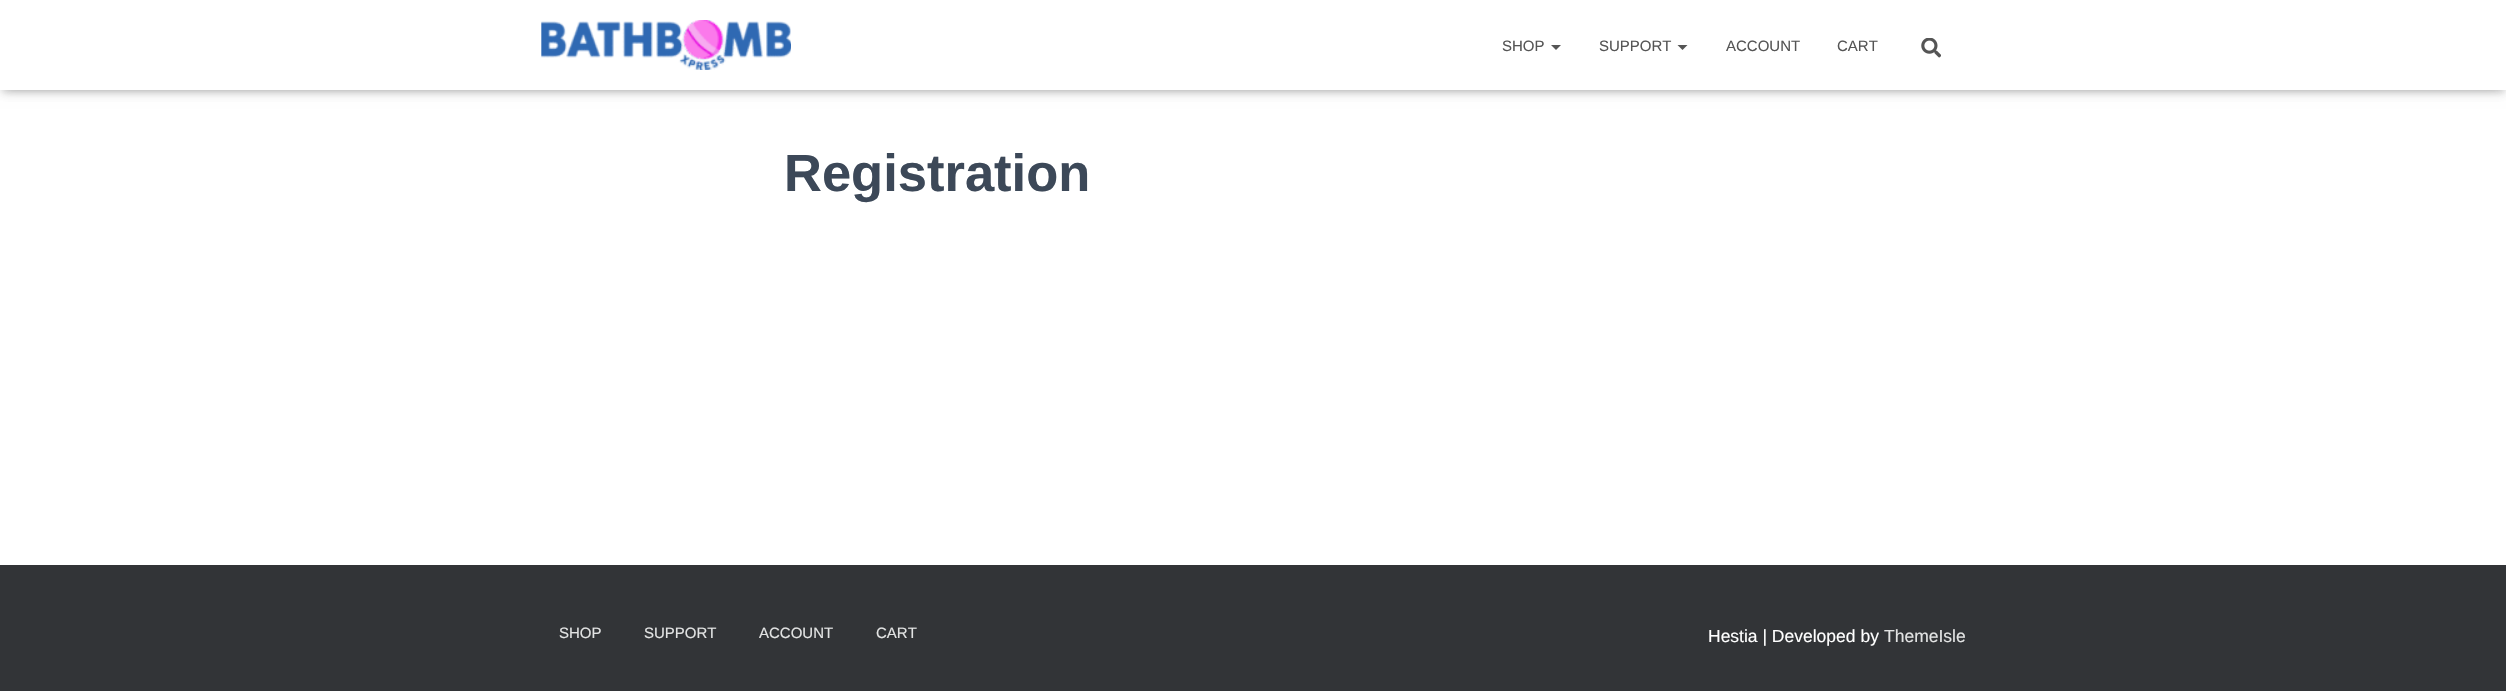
void draw(SkCanvas* canvas) {
    SkPaint paint;
    paint.setAntiAlias(true);
    auto face = [&](const char* family, int weight, float size, bool italic = false) {
        SkFontStyle style(weight, SkFontStyle::kNormal_Width,
            italic ? SkFontStyle::kItalic_Slant : SkFontStyle::kUpright_Slant);
        SkFont result(fontMgr->matchFamilyStyle(family, style), size);
        result.setSubpixel(true);
        return result;
    };
    auto write = [&](const char* s, float x, float y, const SkFont& font, SkColor color) {
        SkPaint ink(SkColor4f::FromColor(color));
        ink.setAntiAlias(true);
        canvas->drawString(s, x, y, font, ink);
    };
    auto block = [&](float x, float y, float w, float h, SkColor color) {
        SkPaint ink(SkColor4f::FromColor(color));
        ink.setAntiAlias(true);
        canvas->drawRect(SkRect::MakeXYWH(x, y, w, h), ink);
    };
    auto paste = [&](const char* path, float x, float y, float w, float h) {
        auto image = SkImages::DeferredFromEncodedData(SkData::MakeFromFileName(path));
        canvas->drawImageRect(image, SkRect::MakeXYWH(x, y, w, h), SkSamplingOptions());
    };
    canvas->clear(SkColorSetRGB(50, 52, 55));
    block(0, 90, 2506, 475, SK_ColorWHITE);
    paint.setColor(SkColorSetARGB(26, 0, 0, 0));
    paint.setMaskFilter(SkMaskFilter::MakeBlur(kNormal_SkBlurStyle, 3));
    canvas->drawRect(SkRect::MakeXYWH(3, 8, 2501, 85), paint);
    paint.setMaskFilter(nullptr);
    paint.setColor(SkColorSetARGB(31, 0, 0, 0));
    paint.setMaskFilter(SkMaskFilter::MakeBlur(kNormal_SkBlurStyle, 6));
    canvas->drawRect(SkRect::MakeXYWH(0, 1, 2506, 90), paint);
    paint.setMaskFilter(nullptr);
    paint.setColor(SkColorSetARGB(107, 0, 0, 0));
    paint.setMaskFilter(SkMaskFilter::MakeBlur(kNormal_SkBlurStyle, 6));
    canvas->drawRect(SkRect::MakeXYWH(8, 9, 2491, 75), paint);
    paint.setMaskFilter(nullptr);
    block(0, 0, 2506, 90, SK_ColorWHITE);
    paste("pic1.png", 541, 20, 250, 50);
    auto kFont1 = face("Liberation Sans", 400, 15);
    write("SHOP", 1502, 51, kFont1, SkColorSetRGB(85, 85, 85));
    paint.setColor(SkColorSetRGB(85, 85, 85));
    canvas->drawPath(SkPathBuilder().moveTo(1551, 45).lineTo(1561, 45).lineTo(1556, 50).close().detach(), paint);
    write("SUPPORT", 1599, 51, kFont1, SkColorSetRGB(85, 85, 85));
    canvas->drawPath(SkPathBuilder().moveTo(1677.5f, 45).lineTo(1687.5f, 45).lineTo(1682.5f, 50).close().detach(), paint);
    write("ACCOUNT", 1726, 51, kFont1, SkColorSetRGB(85, 85, 85));
    write("CART", 1837, 51, kFont1, SkColorSetRGB(85, 85, 85));
    paste("pic2.png", 1921, 38, 20, 20);
    auto kFont2 = face("Liberation Sans", 700, 52.5f);
    write("Registration", 784, 191, kFont2, SkColorSetRGB(60, 72, 88));
    write("SHOP", 559, 638, kFont1, SkColorSetRGB(226, 227, 227));
    write("SUPPORT", 644, 638, kFont1, SkColorSetRGB(226, 227, 227));
    write("ACCOUNT", 759, 638, kFont1, SkColorSetRGB(226, 227, 227));
    write("CART", 876, 638, kFont1, SkColorSetRGB(226, 227, 227));
    auto kFont3 = face("Liberation Sans", 400, 17.5f);
    write("Hestia | Developed by", 1708, 642, kFont3, SK_ColorWHITE);
    write("ThemeIsle", 1884, 642, kFont3, SkColorSetRGB(226, 227, 227));
}
